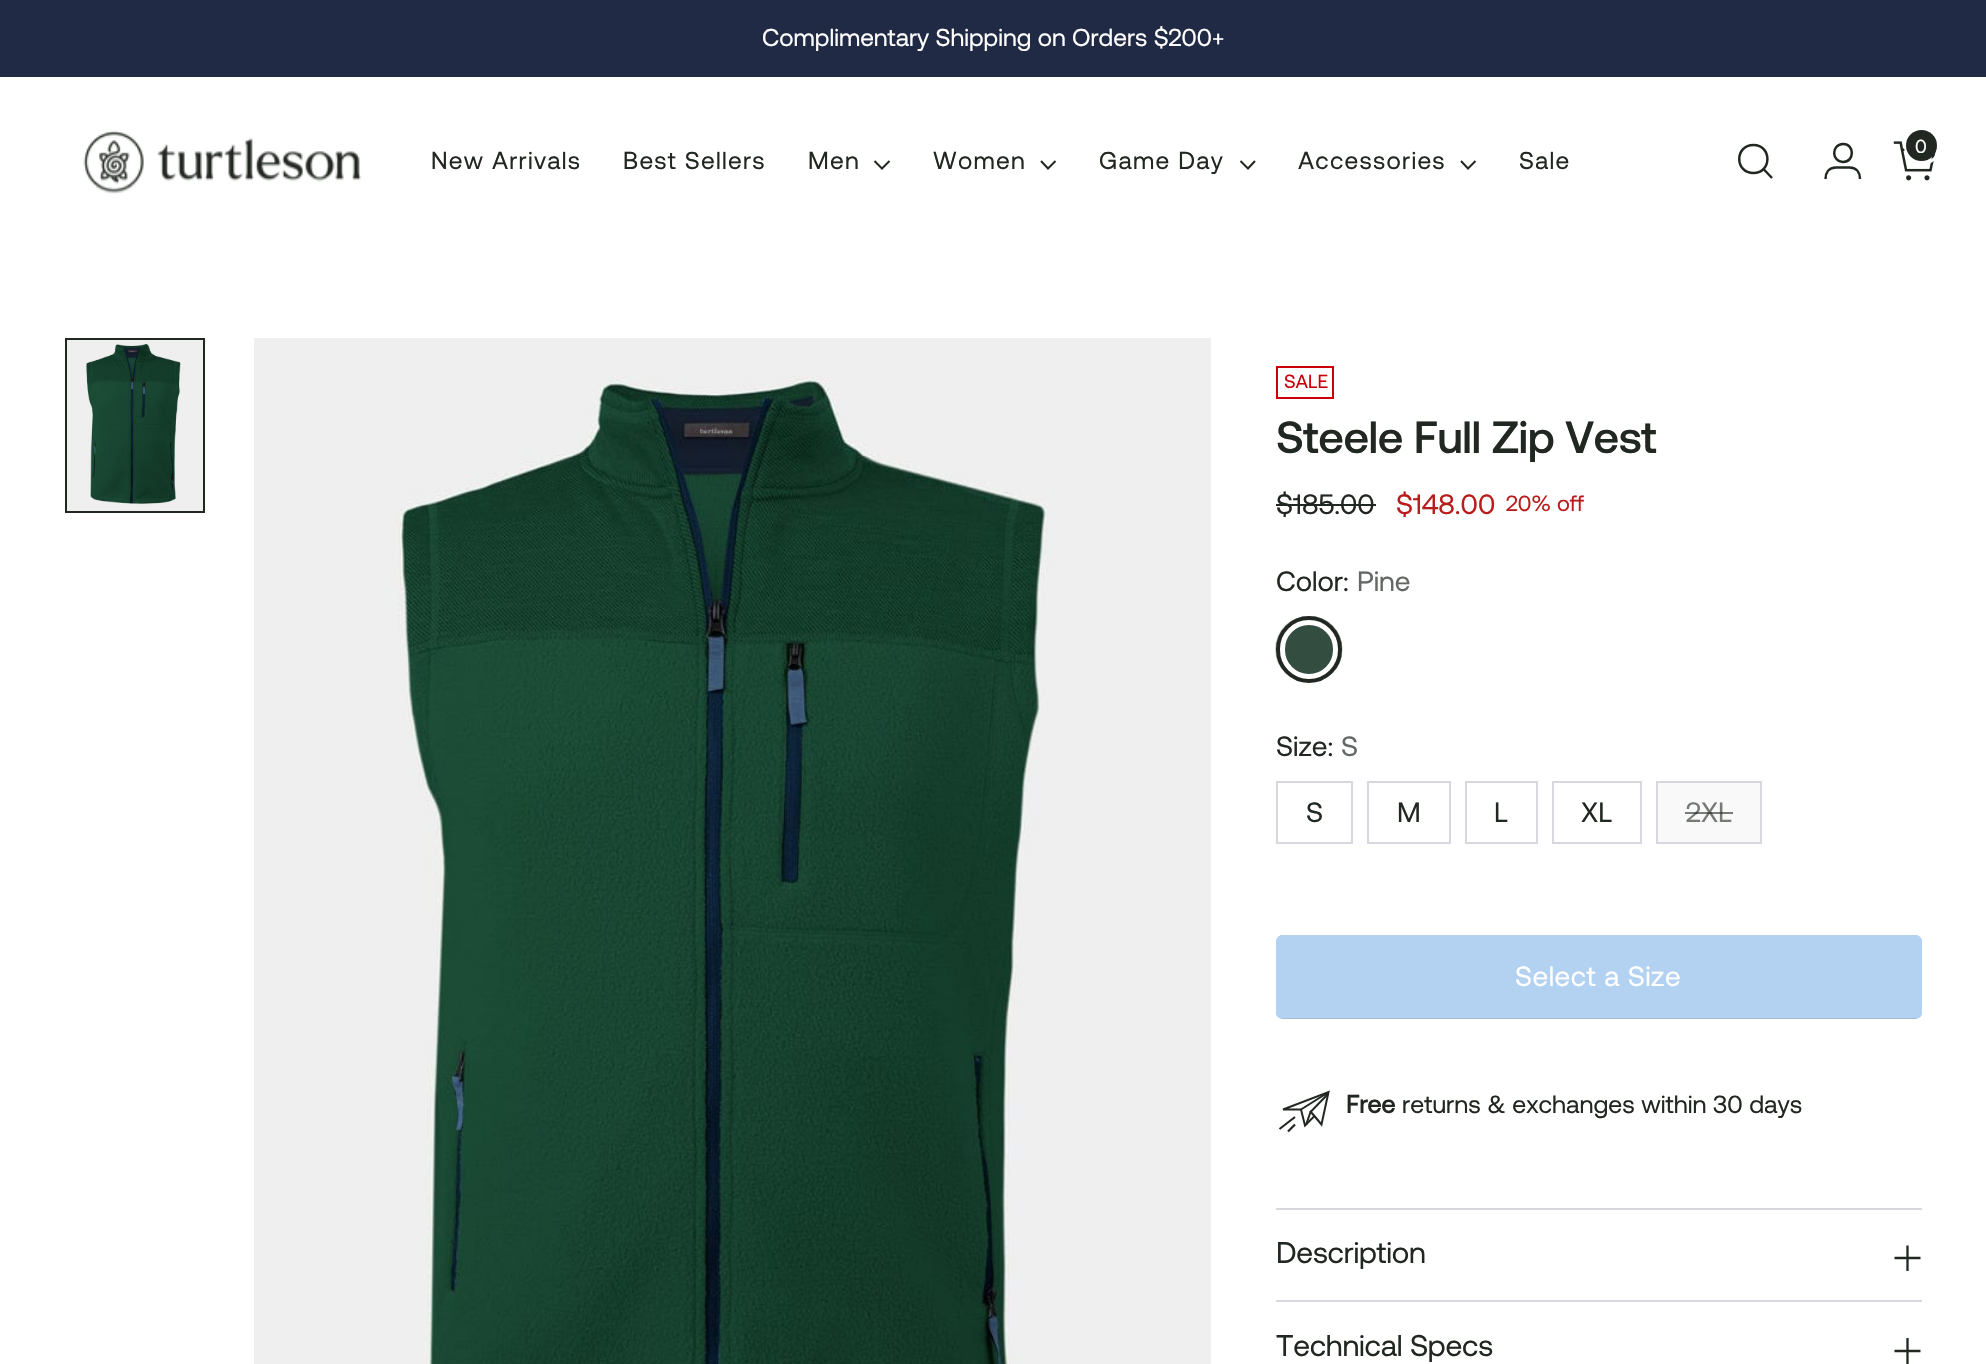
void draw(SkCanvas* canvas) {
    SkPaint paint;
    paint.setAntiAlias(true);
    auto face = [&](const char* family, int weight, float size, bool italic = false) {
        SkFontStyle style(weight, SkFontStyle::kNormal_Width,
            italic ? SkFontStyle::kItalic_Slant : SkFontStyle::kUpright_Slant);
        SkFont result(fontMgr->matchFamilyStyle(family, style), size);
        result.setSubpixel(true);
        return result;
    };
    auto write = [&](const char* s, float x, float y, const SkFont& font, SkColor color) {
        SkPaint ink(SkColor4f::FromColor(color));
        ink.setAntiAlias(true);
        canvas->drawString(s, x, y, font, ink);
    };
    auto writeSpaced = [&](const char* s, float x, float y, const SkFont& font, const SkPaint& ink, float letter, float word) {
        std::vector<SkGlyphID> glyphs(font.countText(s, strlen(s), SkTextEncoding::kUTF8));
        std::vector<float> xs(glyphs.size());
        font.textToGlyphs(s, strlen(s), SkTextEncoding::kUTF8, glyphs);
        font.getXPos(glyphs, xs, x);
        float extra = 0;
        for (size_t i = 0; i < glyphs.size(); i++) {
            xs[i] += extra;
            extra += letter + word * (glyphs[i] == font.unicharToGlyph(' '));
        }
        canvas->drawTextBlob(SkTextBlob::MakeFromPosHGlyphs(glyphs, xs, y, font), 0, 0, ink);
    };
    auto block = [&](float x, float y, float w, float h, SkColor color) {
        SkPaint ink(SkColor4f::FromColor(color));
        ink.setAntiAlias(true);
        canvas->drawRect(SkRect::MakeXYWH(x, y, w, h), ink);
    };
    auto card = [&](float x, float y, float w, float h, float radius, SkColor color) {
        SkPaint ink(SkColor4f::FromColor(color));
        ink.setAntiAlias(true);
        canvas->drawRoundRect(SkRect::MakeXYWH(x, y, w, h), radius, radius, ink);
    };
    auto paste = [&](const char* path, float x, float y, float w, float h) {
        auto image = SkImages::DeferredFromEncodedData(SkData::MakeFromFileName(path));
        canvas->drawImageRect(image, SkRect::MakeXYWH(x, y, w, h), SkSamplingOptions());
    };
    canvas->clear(SK_ColorWHITE);
    block(0, 0, 1986, 77, SkColorSetRGB(32, 42, 68));
    auto kFont1 = face("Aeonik", 400, 24.5f);
    write("Complimentary Shipping on Orders $200+", 762, 46, kFont1, SK_ColorWHITE);
    paint.setStyle(SkPaint::kStroke_Style);
    paint.setStrokeWidth(2.5f);
    paint.setStrokeCap(SkPaint::kRound_Cap);
    paint.setColor(SkColorSetRGB(33, 39, 33));
    canvas->drawPath(SkPathBuilder().moveTo(1753.5f, 173).cubicTo(1772, 173, 1772, 145, 1753.5f, 145).cubicTo(1734.5f, 145, 1734.5f, 173, 1753.5f, 173).close().detach(), paint);
    paint.setStrokeCap(SkPaint::kButt_Cap);
    canvas->drawPath(SkPathBuilder().moveTo(1763.5f, 169).lineTo(1772, 178).detach(), paint);
    canvas->drawPath(SkPathBuilder().moveTo(1843, 162).cubicTo(1855, 162, 1854.5f, 143.5f, 1843, 144).cubicTo(1831, 144.5f, 1831.5f, 161.5f, 1843, 162).close().moveTo(1825.5f, 179).cubicTo(1825.5f, 173, 1828.5f, 167.5f, 1836, 167.5f).lineTo(1849.5f, 167.5f).cubicTo(1857, 167.5f, 1860, 173, 1860, 179).detach(), paint);
    paste("pic1.png", 1893, 141, 44, 40);
    paint.setStrokeWidth(3);
    paint.setColor(SK_ColorWHITE);
    canvas->drawCircle(1922.5f, 146.5f, 17, paint);
    paint.setStyle(SkPaint::kFill_Style);
    paint.setColor(SkColorSetRGB(33, 39, 33));
    canvas->drawCircle(1921.5f, 145.5f, 15.5f, paint);
    auto kFont2 = face("Aeonik", 400, 19);
    write("0", 1915, 153, kFont2, SK_ColorWHITE);
    paste("pic2.png", 83, 130, 279, 64);
    writeSpaced("New Arrivals", 431, 169, kFont1, paint, 1.25f, 0);
    writeSpaced("Best Sellers", 623, 169, kFont1, paint, 1.25f, 0);
    writeSpaced("Men", 808, 169, kFont1, paint, 1.25f, 0);
    paint.setStyle(SkPaint::kStroke_Style);
    paint.setStrokeWidth(2);
    canvas->drawPath(SkPathBuilder().moveTo(874.5f, 161).lineTo(882, 168.5f).lineTo(889.5f, 161).detach(), paint);
    paint.setStyle(SkPaint::kFill_Style);
    writeSpaced("Women", 933, 169, kFont1, paint, 1.25f, 0);
    paint.setStyle(SkPaint::kStroke_Style);
    canvas->drawPath(SkPathBuilder().moveTo(1041, 161).lineTo(1048, 168.5f).lineTo(1055.5f, 161).detach(), paint);
    paint.setStyle(SkPaint::kFill_Style);
    writeSpaced("Game Day", 1099, 169, kFont1, paint, 1.25f, 0);
    paint.setStyle(SkPaint::kStroke_Style);
    canvas->drawPath(SkPathBuilder().moveTo(1240.5f, 161).lineTo(1248, 168.5f).lineTo(1255, 161).detach(), paint);
    paint.setStyle(SkPaint::kFill_Style);
    writeSpaced("Accessories", 1298, 169, kFont1, paint, 1.25f, 0);
    paint.setStyle(SkPaint::kStroke_Style);
    canvas->drawPath(SkPathBuilder().moveTo(1461, 161).lineTo(1468, 168.5f).lineTo(1475.5f, 161).detach(), paint);
    paint.setStyle(SkPaint::kFill_Style);
    writeSpaced("Sale", 1519, 169, kFont1, paint, 1.25f, 0);
    paste("pic3.png", 67, 340, 136, 171);
    paint.setStyle(SkPaint::kStroke_Style);
    canvas->drawRect(SkRect::MakeXYWH(66, 339, 138, 173), paint);
    paste("pic4.png", 254, 338, 957, 1026);
    paint.setColor(SkColorSetRGB(202, 0, 9));
    canvas->drawRect(SkRect::MakeXYWH(1277, 367, 56, 31), paint);
    write("SALE", 1284, 388, kFont2, SkColorSetRGB(202, 0, 9));
    auto kFont3 = face("Aeonik", 500, 45);
    paint.setStyle(SkPaint::kFill_Style);
    paint.setColor(SkColorSetRGB(33, 39, 33));
    writeSpaced("Steele Full Zip Vest", 1276, 453, kFont3, paint, -0.5f, 0);
    auto kFont4 = face("Aeonik", 400, 28);
    write("$185.00", 1276, 514, kFont4, SkColorSetRGB(33, 39, 33));
    block(1276, 504, 100, 2, SkColorSetRGB(33, 39, 33));
    write("$148.00", 1396, 514, kFont4, SkColorSetRGB(186, 28, 28));
    auto kFont5 = face("Aeonik", 400, 22);
    write("20% off", 1506, 511, kFont5, SkColorSetRGB(186, 28, 28));
    write("Color:", 1276, 591, kFont4, SkColorSetRGB(33, 39, 33));
    write("Pine", 1357, 591, kFont4, SkColorSetRGB(100, 104, 100));
    paint.setStyle(SkPaint::kStroke_Style);
    paint.setColor(SkColorSetRGB(216, 215, 223));
    canvas->drawRoundRect(SkRect::MakeXYWH(1277, 617, 64, 65), 32, 32, paint);
    paste("pic5.png", 1275, 616, 68, 67);
    paint.setStrokeWidth(9);
    paint.setColor(SK_ColorWHITE);
    canvas->drawRoundRect(SkRect::MakeXYWH(1280.5f, 620.5f, 57, 58), 28.5f, 28.5f, paint);
    paint.setStrokeWidth(4);
    paint.setColor(SkColorSetRGB(33, 39, 33));
    canvas->drawRoundRect(SkRect::MakeXYWH(1278, 618, 62, 63), 31, 31, paint);
    write("Size:", 1276, 756, kFont4, SkColorSetRGB(33, 39, 33));
    write("S", 1341, 756, kFont4, SkColorSetRGB(100, 104, 100));
    paint.setStrokeWidth(2);
    paint.setColor(SkColorSetRGB(216, 215, 223));
    canvas->drawRect(SkRect::MakeXYWH(1277, 782, 75, 61), paint);
    write("S", 1306, 822, kFont4, SkColorSetRGB(33, 39, 33));
    canvas->drawRect(SkRect::MakeXYWH(1368, 782, 82, 61), paint);
    write("M", 1397, 822, kFont4, SkColorSetRGB(33, 39, 33));
    canvas->drawRect(SkRect::MakeXYWH(1466, 782, 71, 61), paint);
    write("L", 1494, 822, kFont4, SkColorSetRGB(33, 39, 33));
    canvas->drawRect(SkRect::MakeXYWH(1553, 782, 88, 61), paint);
    write("XL", 1581, 822, kFont4, SkColorSetRGB(33, 39, 33));
    paint.setStyle(SkPaint::kFill_Style);
    paint.setColor(SkColorSetRGB(249, 249, 249));
    canvas->drawRect(SkRect::MakeXYWH(1657, 782, 104, 61), paint);
    paint.setStyle(SkPaint::kStroke_Style);
    paint.setColor(SkColorSetRGB(216, 215, 223));
    canvas->drawRect(SkRect::MakeXYWH(1657, 782, 104, 61), paint);
    write("2XL", 1686, 822, kFont4, SkColorSetRGB(119, 123, 119));
    block(1685, 812, 48, 2, SkColorSetARGB(153, 33, 39, 33));
    card(1276, 935, 646, 84, 7, SkColorSetRGB(164, 190, 216));
    paint.setStyle(SkPaint::kFill_Style);
    paint.setColor(SkColorSetRGB(179, 210, 242));
    canvas->drawPath(SkPathBuilder().moveTo(1283, 935).lineTo(1915, 935).cubicTo(1919, 935, 1922, 938, 1922, 942).lineTo(1922, 1012).cubicTo(1922, 1015, 1921, 1017, 1919, 1018).lineTo(1279, 1018).cubicTo(1277, 1017, 1276, 1015, 1276, 1012).lineTo(1276, 942).cubicTo(1276, 938, 1279, 935, 1283, 935).close().detach(), paint);
    paint.setColor(SK_ColorWHITE);
    writeSpaced("Select a Size", 1515, 986, kFont4, paint, 0.5f, 0);
    paint.setStyle(SkPaint::kStroke_Style);
    paint.setStrokeWidth(2.2f);
    paint.setColor(SkColorSetRGB(33, 39, 33));
    canvas->drawPath(SkPathBuilder().moveTo(1295, 1117).lineTo(1279.5f, 1129).moveTo(1295, 1124.5f).lineTo(1288, 1131.5f).detach(), paint);
    paint.setStrokeWidth(2);
    paint.setStrokeCap(SkPaint::kRound_Cap);
    canvas->drawPath(SkPathBuilder().moveTo(1283, 1109.5f).lineTo(1328.5f, 1092).lineTo(1321.5f, 1124.5f).lineTo(1314.5f, 1116).lineTo(1305, 1125.5f).lineTo(1301, 1109.5f).close().moveTo(1310.5f, 1111.5f).lineTo(1321.5f, 1124.5f).detach(), paint);
    paint.setStrokeCap(SkPaint::kButt_Cap);
    canvas->drawPath(SkPathBuilder().moveTo(1306, 1125).lineTo(1310.5f, 1112).lineTo(1327.5f, 1094.5f).moveTo(1301, 1109.5f).lineTo(1328, 1092.5f).detach(), paint);
    auto kFont6 = face("Aeonik", 700, 24.9f);
    write("Free", 1346, 1113, kFont6, SkColorSetRGB(33, 39, 33));
    auto kFont7 = face("Aeonik", 400, 24.9f);
    write("returns & exchanges within 30 days", 1402, 1113, kFont7, SkColorSetRGB(33, 39, 33));
    block(1276, 1208, 646, 2, SkColorSetRGB(216, 215, 223));
    block(1276, 1300, 646, 2, SkColorSetRGB(216, 215, 223));
    auto kFont8 = face("Aeonik", 400, 30);
    paint.setStyle(SkPaint::kFill_Style);
    writeSpaced("Description", 1276, 1263, kFont8, paint, -0.25f, 0);
    paint.setStyle(SkPaint::kStroke_Style);
    paint.setStrokeWidth(2.3f);
    canvas->drawPath(SkPathBuilder().moveTo(1894.5f, 1258).lineTo(1907.5f, 1258).moveTo(1920.5f, 1258).lineTo(1907.5f, 1258).moveTo(1907.5f, 1258).lineTo(1907.5f, 1245.5f).moveTo(1907.5f, 1258).lineTo(1907.5f, 1271).detach(), paint);
    paint.setStyle(SkPaint::kFill_Style);
    writeSpaced("Technical Specs", 1276, 1356, kFont8, paint, -0.25f, 0);
    paint.setStyle(SkPaint::kStroke_Style);
    canvas->drawPath(SkPathBuilder().moveTo(1894.5f, 1351).lineTo(1907.5f, 1351).moveTo(1920.5f, 1351).lineTo(1907.5f, 1351).moveTo(1907.5f, 1351).lineTo(1907.5f, 1338).moveTo(1907.5f, 1351).lineTo(1907.5f, 1364).detach(), paint);
}
